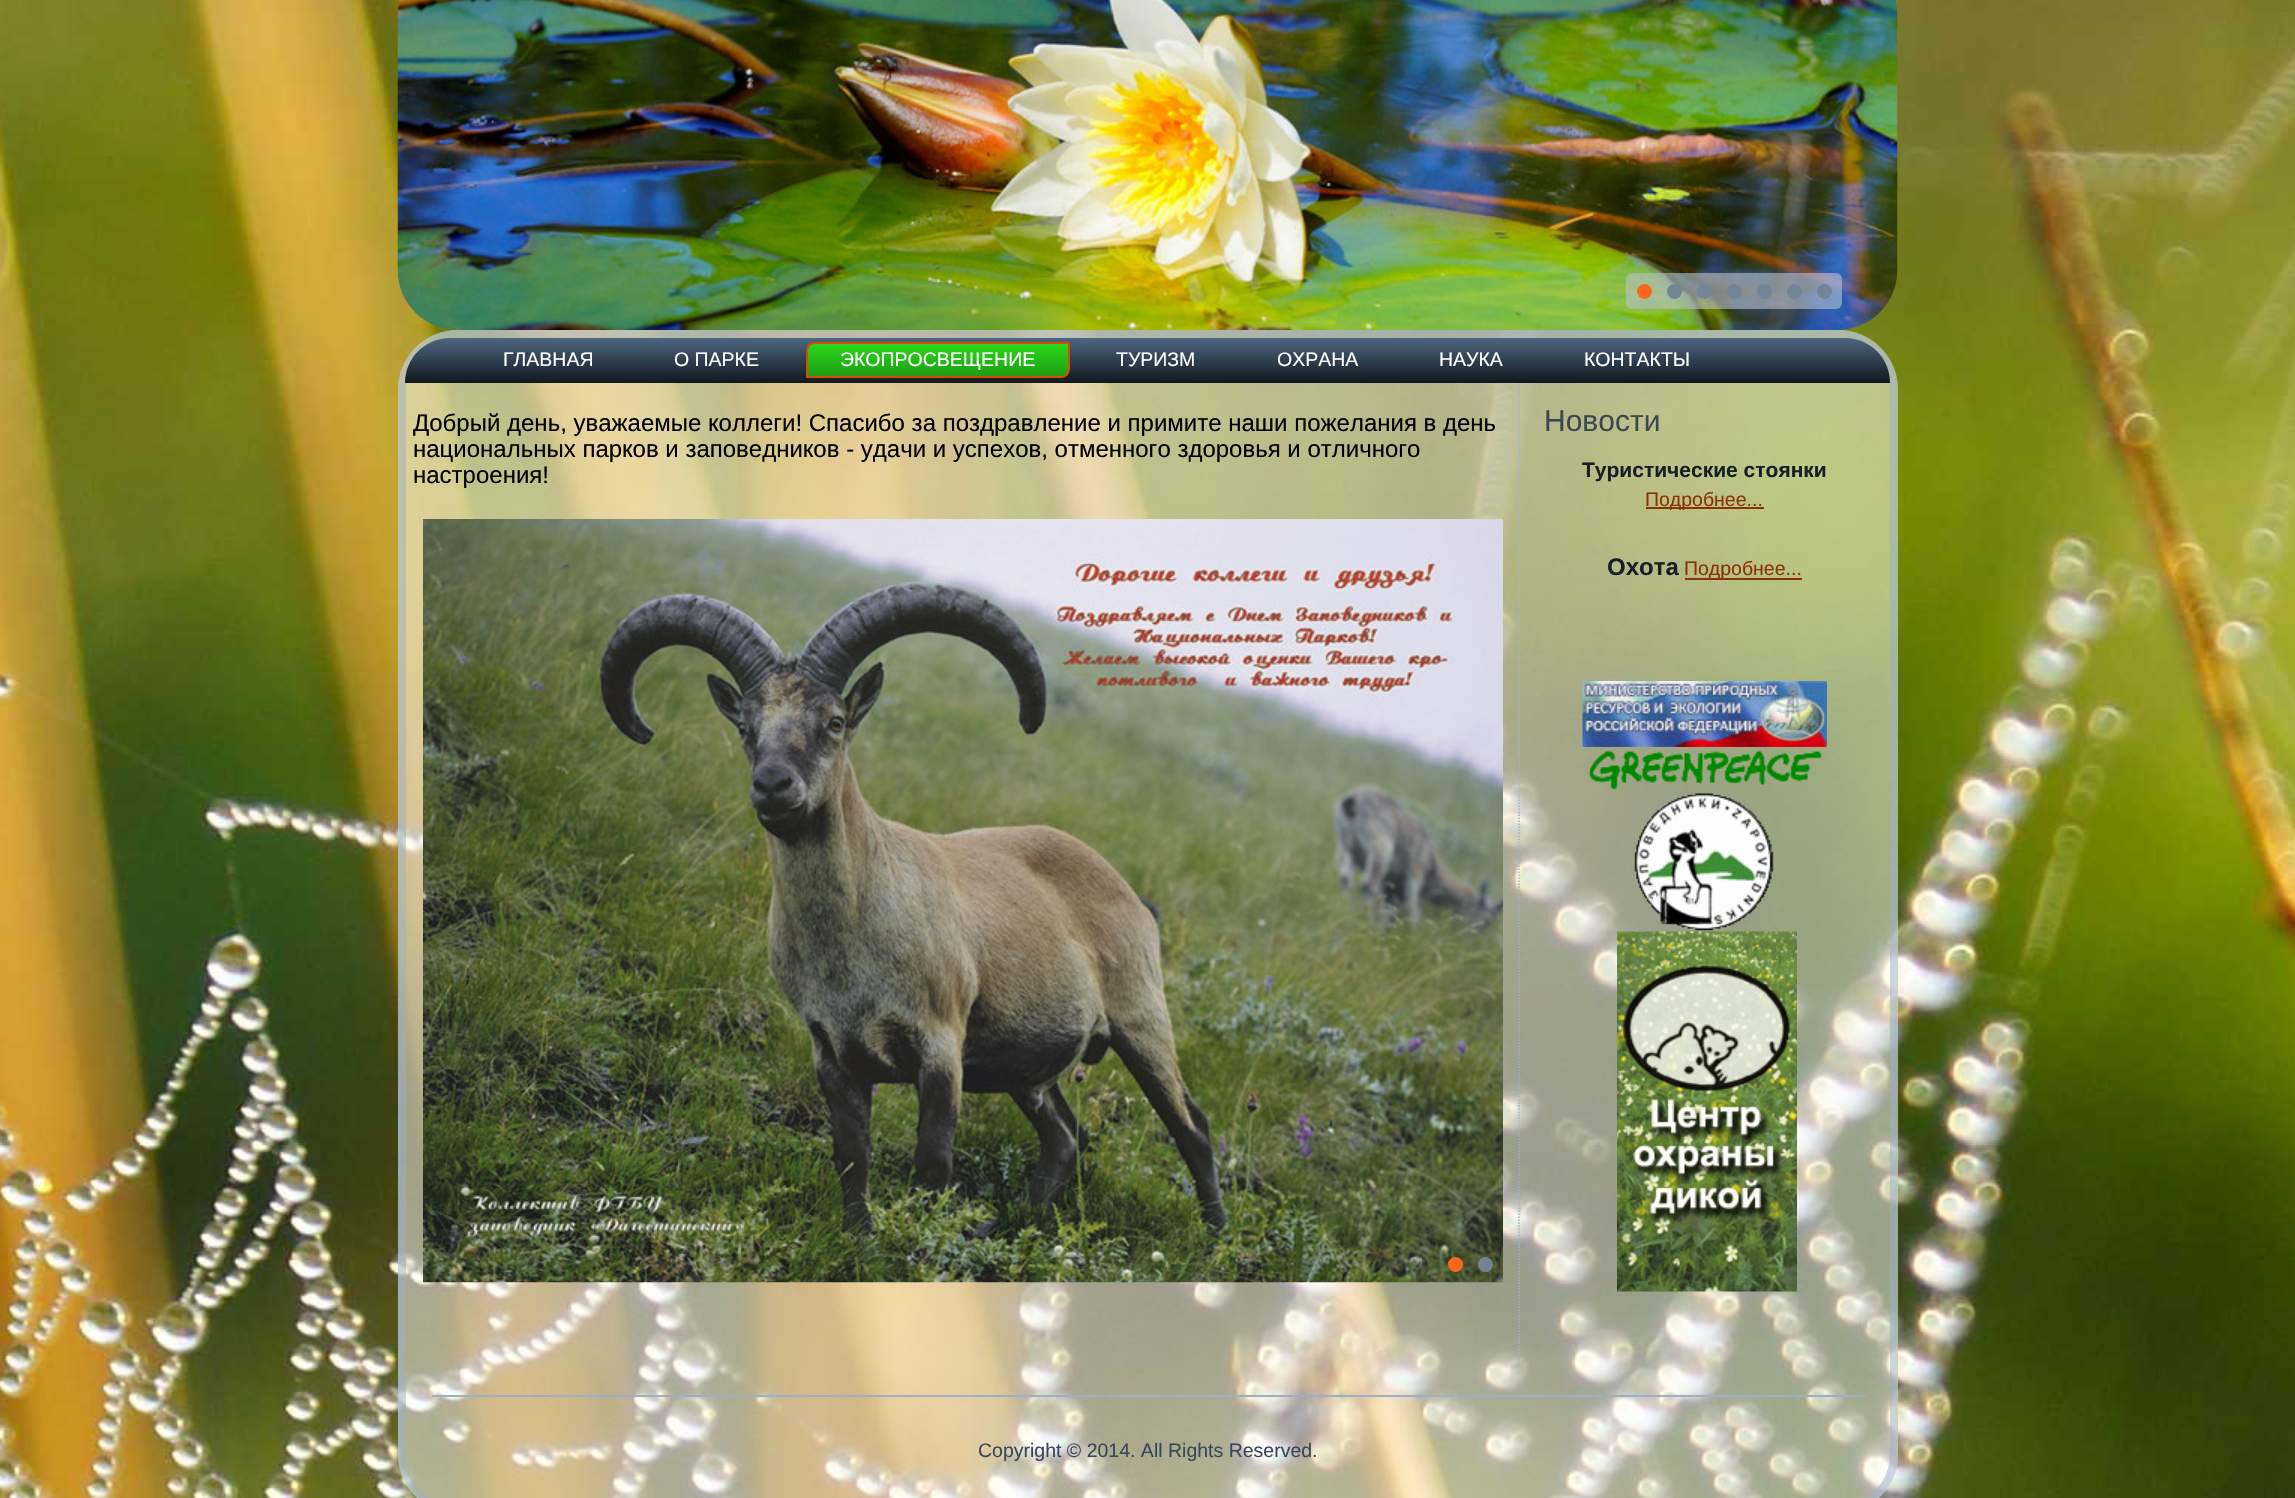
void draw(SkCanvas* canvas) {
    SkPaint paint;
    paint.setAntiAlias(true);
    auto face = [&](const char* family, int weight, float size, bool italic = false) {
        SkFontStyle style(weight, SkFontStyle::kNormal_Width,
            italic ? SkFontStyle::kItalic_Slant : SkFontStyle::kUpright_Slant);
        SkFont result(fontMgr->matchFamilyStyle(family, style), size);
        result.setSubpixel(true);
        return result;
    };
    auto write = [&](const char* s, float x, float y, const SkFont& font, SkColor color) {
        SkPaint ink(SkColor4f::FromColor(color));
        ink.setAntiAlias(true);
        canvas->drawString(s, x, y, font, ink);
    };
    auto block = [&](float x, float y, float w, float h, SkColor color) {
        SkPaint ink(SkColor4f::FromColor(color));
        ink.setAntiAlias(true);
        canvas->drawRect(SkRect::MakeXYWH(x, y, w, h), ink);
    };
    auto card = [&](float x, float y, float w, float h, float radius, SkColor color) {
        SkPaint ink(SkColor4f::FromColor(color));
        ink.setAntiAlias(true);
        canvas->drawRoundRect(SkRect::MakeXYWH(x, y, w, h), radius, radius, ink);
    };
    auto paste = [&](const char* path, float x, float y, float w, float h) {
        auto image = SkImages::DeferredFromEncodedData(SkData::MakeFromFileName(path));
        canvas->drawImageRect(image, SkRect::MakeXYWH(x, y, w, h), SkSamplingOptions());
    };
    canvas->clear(SK_ColorWHITE);
    paste("pic1.png", 0, 0, 2295, 1498);
    paste("pic2.png", 397, 0, 1501, 330);
    card(1626, 273, 216, 36, 6, SkColorSetARGB(153, 185, 194, 203));
    paint.setColor(SkColorSetRGB(250, 104, 30));
    canvas->drawCircle(1644.5f, 291.5f, 7.5f, paint);
    paint.setColor(SkColorSetRGB(114, 133, 151));
    canvas->drawCircle(1674.5f, 291.5f, 7.5f, paint);
    canvas->drawCircle(1704.5f, 291.5f, 7.5f, paint);
    canvas->drawCircle(1734.5f, 291.5f, 7.5f, paint);
    canvas->drawCircle(1764.5f, 291.5f, 7.5f, paint);
    canvas->drawCircle(1794.5f, 291.5f, 7.5f, paint);
    canvas->drawCircle(1824.5f, 291.5f, 7.5f, paint);
    card(398, 330, 1500, 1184, 60, SkColorSetARGB(128, 255, 255, 255));
    paint.setStyle(SkPaint::kStroke_Style);
    paint.setStrokeWidth(8);
    paint.setColor(SkColorSetARGB(128, 156, 175, 196));
    canvas->drawRoundRect(SkRect::MakeXYWH(402, 334, 1492, 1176), 56, 56, paint);
    paint.setStrokeWidth(1.5f);
    paint.setColor(SkColorSetRGB(163, 180, 200));
    paint.setPathEffect(SkDashPathEffect::Make({{1.5f, 1.5f}}, 0));
    canvas->drawPath(SkPathBuilder().moveTo(1519, 382.5f).lineTo(1519, 1365).detach(), paint);
    paint.setPathEffect(nullptr);
    paint.setStyle(SkPaint::kFill_Style);
    {
        const SkColor colors[] = {SkColorSetRGB(78, 104, 131), SkColorSetRGB(17, 23, 29)};
        const float stops[] = {0, 1};
        const SkPoint ends[] = {{1148, 337}, {1148, 383}};
        paint.setShader(SkGradientShader::MakeLinear(ends, colors, stops, 2, SkTileMode::kClamp));
        paint.setAlpha(255);
    }
    canvas->drawPath(SkPathBuilder().moveTo(450, 338).lineTo(1845, 338).cubicTo(1870, 338, 1890, 358, 1890, 383).lineTo(405, 383).cubicTo(405, 358, 425, 338, 450, 338).close().detach(), paint);
    auto kFont1 = face("Liberation Sans", 400, 19.5f);
    write("ГЛАВНАЯ", 503, 366, kFont1, SK_ColorWHITE);
    write("О ПАРКЕ", 674, 366, kFont1, SK_ColorWHITE);
    {
        const SkColor colors[] = {SkColorSetRGB(42, 219, 26), SkColorSetRGB(30, 155, 18)};
        const float stops[] = {0, 1};
        const SkPoint ends[] = {{938, 342}, {938, 378}};
        paint.setShader(SkGradientShader::MakeLinear(ends, colors, stops, 2, SkTileMode::kClamp));
        paint.setAlpha(255);
    }
    canvas->drawPath(SkPathBuilder().moveTo(815, 343).lineTo(1069, 343).lineTo(1069, 369).cubicTo(1069, 373.5f, 1065.5f, 377, 1061, 377).lineTo(807, 377).lineTo(807, 351).cubicTo(807, 346.5f, 810.5f, 343, 815, 343).close().detach(), paint);
    paint.setStyle(SkPaint::kStroke_Style);
    paint.setStrokeWidth(2);
    paint.setShader(nullptr);
    paint.setColor(SkColorSetRGB(215, 75, 4));
    canvas->drawPath(SkPathBuilder().moveTo(815, 343).lineTo(1069, 343).lineTo(1069, 369).cubicTo(1069, 373.5f, 1065.5f, 377, 1061, 377).lineTo(807, 377).lineTo(807, 351).cubicTo(807, 346.5f, 810.5f, 343, 815, 343).close().detach(), paint);
    write("ЭКОПРОСВЕЩЕНИЕ", 840, 366, kFont1, SK_ColorWHITE);
    write("ТУРИЗМ", 1116, 366, kFont1, SK_ColorWHITE);
    write("ОХРАНА", 1277, 366, kFont1, SK_ColorWHITE);
    write("НАУКА", 1439, 366, kFont1, SK_ColorWHITE);
    write("КОНТАКТЫ", 1584, 366, kFont1, SK_ColorWHITE);
    auto kFont2 = face("Liberation Sans", 400, 24);
    write("Добрый день, уважаемые коллеги! Спасибо за поздравление и примите наши пожелания в день", 413, 431, kFont2, SK_ColorBLACK);
    write("национальных парков и заповедников - удачи и успехов, отменного здоровья и отличного", 413, 457, kFont2, SK_ColorBLACK);
    write("настроения!", 413, 483, kFont2, SK_ColorBLACK);
    paste("pic3.png", 423, 519, 1080, 764);
    paint.setStyle(SkPaint::kFill_Style);
    paint.setColor(SkColorSetRGB(250, 104, 30));
    canvas->drawCircle(1455.5f, 1264.5f, 7.5f, paint);
    paint.setColor(SkColorSetRGB(114, 133, 151));
    canvas->drawCircle(1485.5f, 1264.5f, 7.5f, paint);
    auto kFont3 = face("Liberation Sans", 400, 30);
    write("Новости", 1544, 431, kFont3, SkColorSetRGB(61, 71, 82));
    auto kFont4 = face("Liberation Sans", 700, 21);
    write("Туристические стоянки", 1582, 477, kFont4, SkColorSetRGB(23, 30, 38));
    block(1646, 507, 118, 2, SkColorSetRGB(140, 49, 3));
    write("Подробнее...", 1645, 506, kFont1, SkColorSetRGB(140, 49, 3));
    auto kFont5 = face("Liberation Sans", 700, 24);
    write("Охота", 1607, 575, kFont5, SkColorSetRGB(23, 30, 38));
    block(1685, 578, 117, 2, SkColorSetRGB(140, 49, 3));
    write("Подробнее...", 1684, 575, kFont1, SkColorSetRGB(140, 49, 3));
    paste("pic4.png", 1582, 681, 245, 66);
    paste("pic5.png", 1588, 750, 234, 40);
    paste("pic6.png", 1634, 793, 140, 138);
    paste("pic7.png", 1617, 931, 180, 361);
    block(432, 1395, 1433, 2, SkColorSetRGB(156, 175, 196));
    write("Copyright © 2014. All Rights Reserved.", 978, 1457, kFont1, SkColorSetRGB(54, 71, 89));
}
